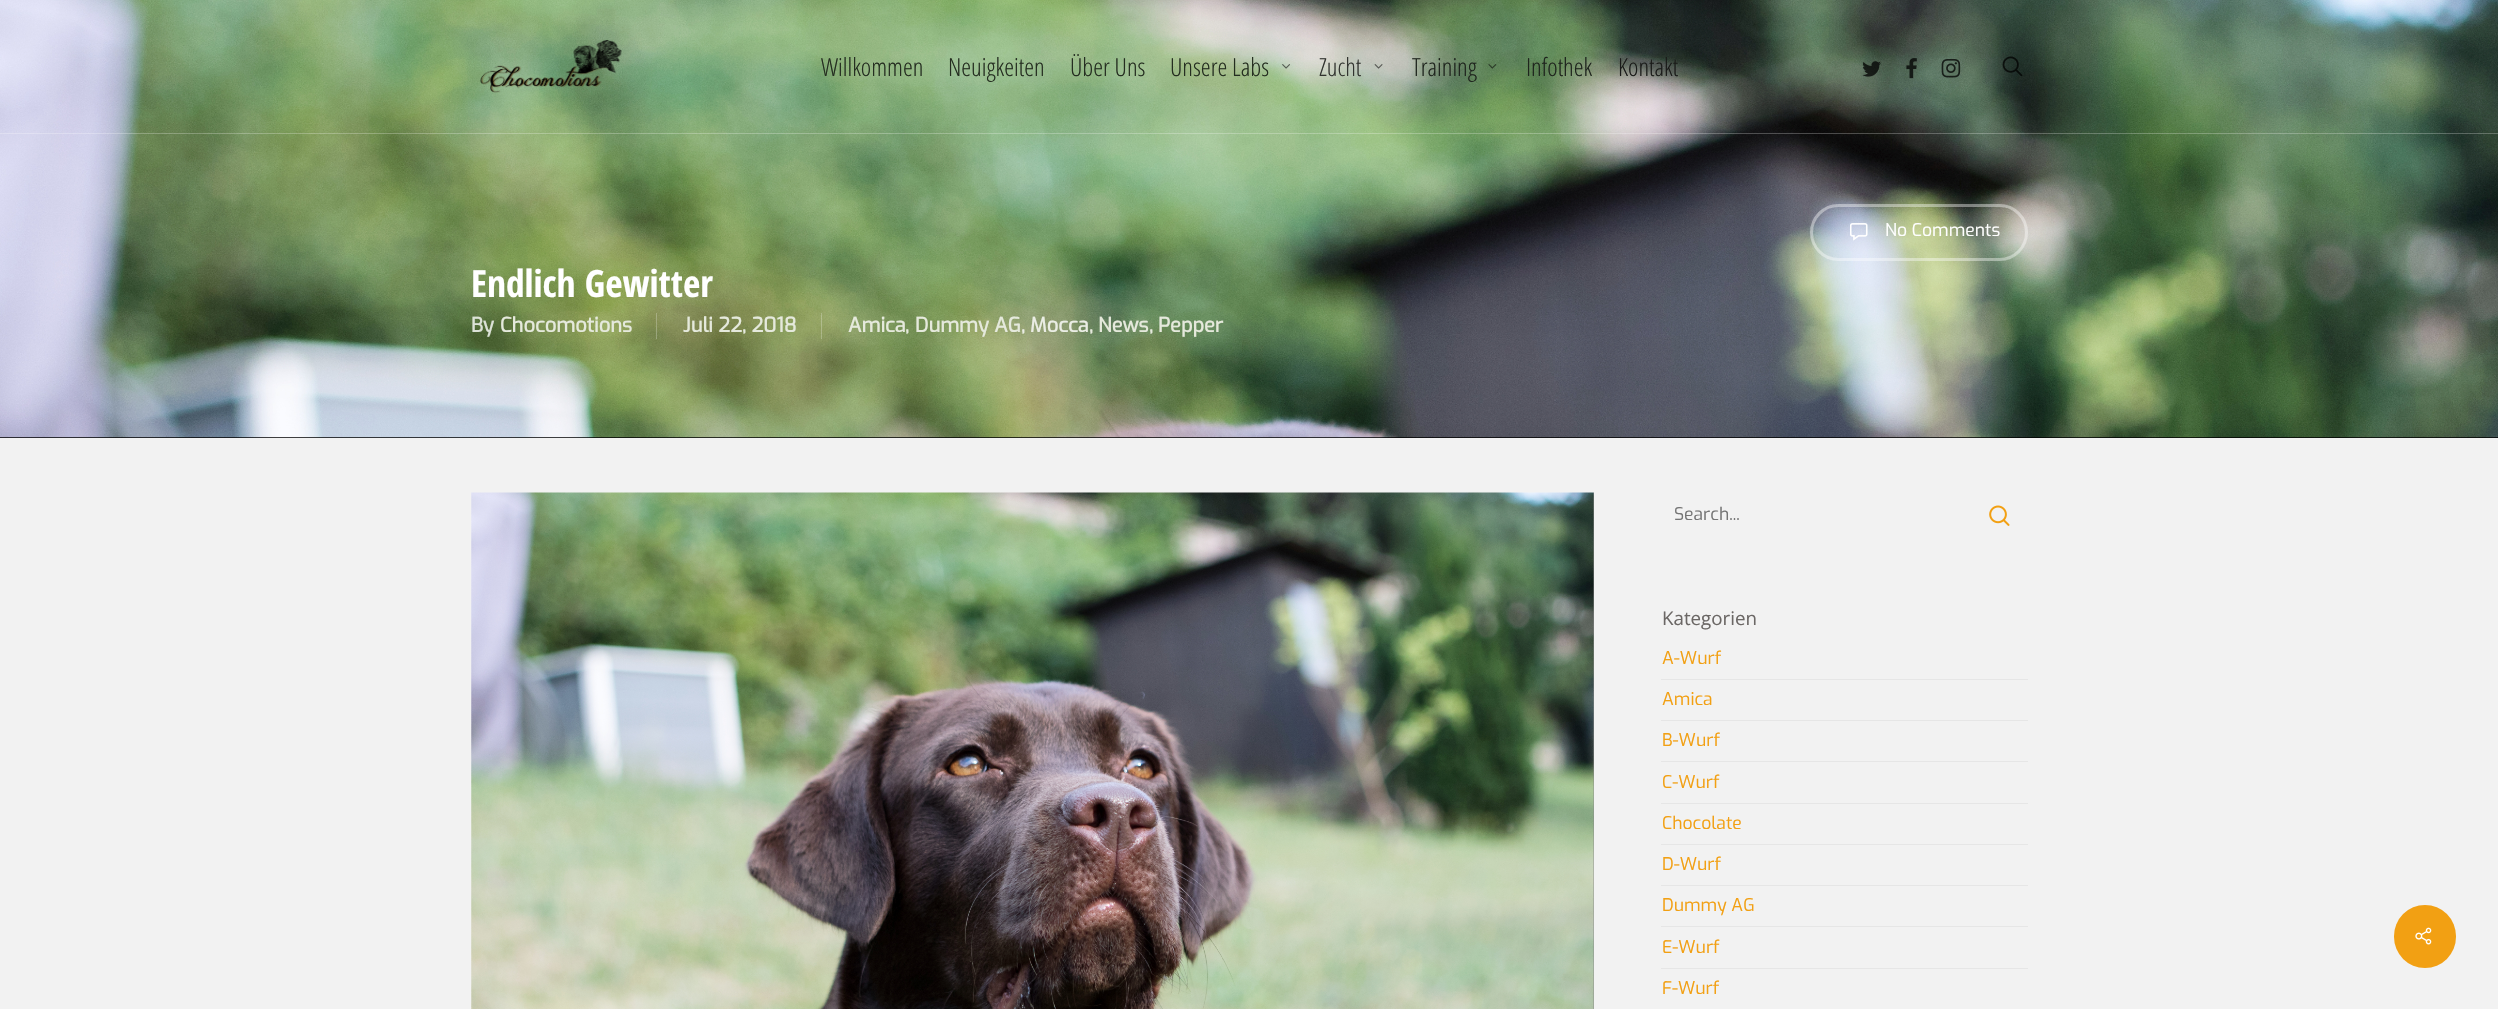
void draw(SkCanvas* canvas) {
    SkPaint paint;
    paint.setAntiAlias(true);
    auto face = [&](const char* family, int weight, float size, bool italic = false) {
        SkFontStyle style(weight, SkFontStyle::kNormal_Width,
            italic ? SkFontStyle::kItalic_Slant : SkFontStyle::kUpright_Slant);
        SkFont result(fontMgr->matchFamilyStyle(family, style), size);
        result.setSubpixel(true);
        return result;
    };
    auto write = [&](const char* s, float x, float y, const SkFont& font, SkColor color) {
        SkPaint ink(SkColor4f::FromColor(color));
        ink.setAntiAlias(true);
        canvas->drawString(s, x, y, font, ink);
    };
    auto block = [&](float x, float y, float w, float h, SkColor color) {
        SkPaint ink(SkColor4f::FromColor(color));
        ink.setAntiAlias(true);
        canvas->drawRect(SkRect::MakeXYWH(x, y, w, h), ink);
    };
    auto card = [&](float x, float y, float w, float h, float radius, SkColor color) {
        SkPaint ink(SkColor4f::FromColor(color));
        ink.setAntiAlias(true);
        canvas->drawRoundRect(SkRect::MakeXYWH(x, y, w, h), radius, radius, ink);
    };
    auto paste = [&](const char* path, float x, float y, float w, float h) {
        auto image = SkImages::DeferredFromEncodedData(SkData::MakeFromFileName(path));
        canvas->drawImageRect(image, SkRect::MakeXYWH(x, y, w, h), SkSamplingOptions());
    };
    canvas->clear(SkColorSetRGB(242, 242, 242));
    block(0, 437, 2498, 1, SK_ColorBLACK);
    paste("pic9.png", 0, 0, 2498, 438);
    block(0, 133, 2498, 1, SkColorSetARGB(64, 255, 255, 255));
    paste("pic1.png", 480, 40, 142, 53);
    auto kFont1 = face("Open Sans Condensed", 300, 25);
    write("Willkommen", 821, 76, kFont1, SkColorSetRGB(36, 45, 32));
    write("Neuigkeiten", 948, 76, kFont1, SkColorSetRGB(36, 45, 32));
    write("Über Uns", 1070, 76, kFont1, SkColorSetRGB(36, 45, 32));
    write("Unsere Labs", 1170, 76, kFont1, SkColorSetRGB(36, 45, 32));
    paste("pic2.png", 1282, 64, 8, 5);
    write("Zucht", 1319, 76, kFont1, SkColorSetRGB(49, 51, 47));
    paste("pic3.png", 1374, 64, 9, 5);
    write("Training", 1412, 76, kFont1, SkColorSetRGB(30, 36, 29));
    paste("pic4.png", 1488, 64, 9, 5);
    write("Infothek", 1526, 76, kFont1, SkColorSetRGB(30, 36, 29));
    write("Kontakt", 1618, 76, kFont1, SkColorSetRGB(26, 27, 25));
    paste("pic5.png", 1862, 61, 19, 16);
    paste("pic6.png", 1906, 58, 11, 21);
    paste("pic7.png", 1941, 59, 20, 19);
    paste("pic8.png", 2002, 56, 21, 21);
    paint.setStyle(SkPaint::kStroke_Style);
    paint.setStrokeWidth(3);
    paint.setColor(SkColorSetARGB(102, 255, 255, 255));
    canvas->drawRoundRect(SkRect::MakeXYWH(1811.5f, 205.5f, 215, 54), 27, 27, paint);
    paste("pic10.png", 1850, 223, 18, 18);
    auto kFont2 = face("Exo", 400, 17.5f);
    write("No Comments", 1885, 236, kFont2, SK_ColorWHITE);
    auto kFont3 = face("Open Sans Condensed", 700, 37.5f);
    write("Endlich Gewitter", 471, 297, kFont3, SK_ColorWHITE);
    auto kFont4 = face("Exo", 700, 20);
    write("By", 471, 332, kFont4, SkColorSetRGB(220, 226, 215));
    write("Chocomotions", 500, 332, kFont4, SkColorSetRGB(229, 233, 220));
    write("Juli 22, 2018", 683, 332, kFont4, SkColorSetRGB(229, 233, 220));
    block(656, 313, 1, 26, SkColorSetARGB(64, 255, 255, 255));
    write("Amica", 848, 332, kFont4, SkColorSetRGB(229, 233, 220));
    block(821, 313, 1, 26, SkColorSetARGB(64, 255, 255, 255));
    write(",", 905, 332, kFont4, SkColorSetRGB(229, 233, 220));
    write("Dummy AG", 915, 332, kFont4, SkColorSetRGB(229, 233, 220));
    write(",", 1021, 332, kFont4, SkColorSetRGB(234, 237, 228));
    write("Mocca", 1030, 332, kFont4, SkColorSetRGB(234, 237, 228));
    write(",", 1089, 332, kFont4, SkColorSetRGB(229, 233, 220));
    write("News", 1098, 332, kFont4, SkColorSetRGB(229, 233, 220));
    write(",", 1149, 332, kFont4, SkColorSetRGB(229, 233, 220));
    write("Pepper", 1158, 332, kFont4, SkColorSetRGB(229, 233, 220));
    paste("pic11.png", 471, 492, 1123, 517);
    write("Search...", 1674, 520, kFont2, SkColorSetRGB(117, 117, 117));
    paste("pic12.png", 1989, 505, 21, 21);
    auto kFont5 = face("Open Sans", 400, 18.75f);
    write("Kategorien", 1662, 625, kFont5, SkColorSetRGB(107, 103, 101));
    block(1661, 679, 367, 1, SkColorSetRGB(230, 230, 230));
    write("A-Wurf", 1662, 664, kFont2, SkColorSetRGB(242, 160, 19));
    block(1661, 720, 367, 1, SkColorSetRGB(230, 230, 230));
    write("Amica", 1662, 705, kFont2, SkColorSetRGB(242, 160, 19));
    block(1661, 761, 367, 1, SkColorSetRGB(230, 230, 230));
    write("B-Wurf", 1662, 746, kFont2, SkColorSetRGB(242, 160, 19));
    block(1661, 803, 367, 1, SkColorSetRGB(230, 230, 230));
    write("C-Wurf", 1662, 788, kFont2, SkColorSetRGB(242, 160, 19));
    block(1661, 844, 367, 1, SkColorSetRGB(230, 230, 230));
    write("Chocolate", 1662, 829, kFont2, SkColorSetRGB(242, 160, 19));
    block(1661, 885, 367, 1, SkColorSetRGB(230, 230, 230));
    write("D-Wurf", 1662, 870, kFont2, SkColorSetRGB(242, 160, 19));
    block(1661, 926, 367, 1, SkColorSetRGB(230, 230, 230));
    write("Dummy AG", 1662, 911, kFont2, SkColorSetRGB(242, 160, 19));
    block(1661, 968, 367, 1, SkColorSetRGB(230, 230, 230));
    write("E-Wurf", 1662, 953, kFont2, SkColorSetRGB(242, 160, 19));
    write("F-Wurf", 1662, 994, kFont2, SkColorSetRGB(242, 160, 19));
    card(2394, 905, 62, 63, 31, SkColorSetRGB(242, 160, 19));
    paste("pic13.png", 2415, 927, 17, 18);
}
